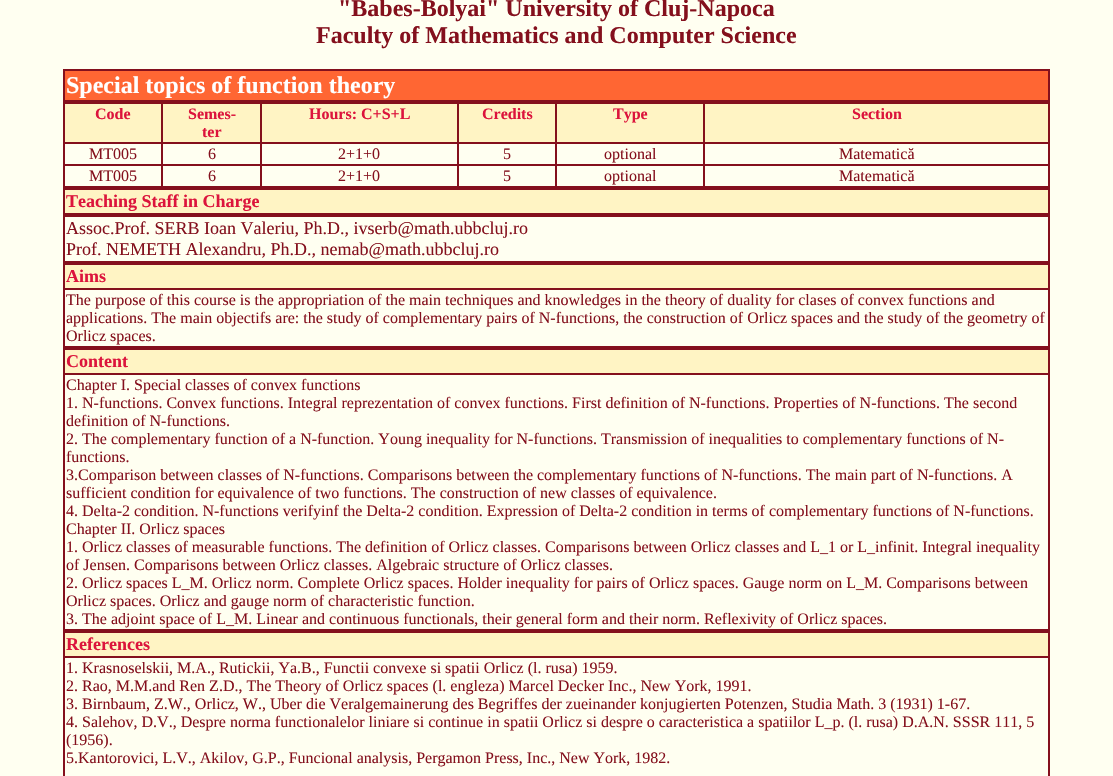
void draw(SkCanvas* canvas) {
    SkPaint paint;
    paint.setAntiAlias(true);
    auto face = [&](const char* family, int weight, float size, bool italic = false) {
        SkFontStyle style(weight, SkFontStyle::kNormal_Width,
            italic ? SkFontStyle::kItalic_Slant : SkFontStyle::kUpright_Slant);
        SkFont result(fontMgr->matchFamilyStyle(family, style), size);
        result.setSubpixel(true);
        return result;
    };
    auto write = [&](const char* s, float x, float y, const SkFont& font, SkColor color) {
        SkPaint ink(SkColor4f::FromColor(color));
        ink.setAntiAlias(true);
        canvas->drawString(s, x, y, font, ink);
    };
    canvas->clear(SkColorSetRGB(255, 255, 241));
    auto kFont1 = face("Liberation Serif", 700, 24);
    write("\"Babes-Bolyai\" University of Cluj-Napoca", 338, 16, kFont1, SkColorSetRGB(132, 16, 29));
    write("Faculty of Mathematics and Computer Science", 316, 43, kFont1, SkColorSetRGB(132, 16, 29));
    paint.setStyle(SkPaint::kStroke_Style);
    paint.setStrokeWidth(1);
    paint.setColor(SkColorSetRGB(132, 16, 29));
    canvas->drawRect(SkRect::MakeXYWH(63.5f, 69.5f, 986, 32), paint);
    paint.setStyle(SkPaint::kFill_Style);
    paint.setColor(SkColorSetRGB(255, 102, 51));
    canvas->drawRect(SkRect::MakeXYWH(64.5f, 70.5f, 984, 30), paint);
    paint.setStyle(SkPaint::kStroke_Style);
    paint.setColor(SkColorSetRGB(132, 16, 29));
    canvas->drawRect(SkRect::MakeXYWH(64.5f, 70.5f, 984, 30), paint);
    write("Special topics of function theory", 66, 93, kFont1, SK_ColorWHITE);
    canvas->drawRect(SkRect::MakeXYWH(63.5f, 102.5f, 986, 85), paint);
    paint.setStyle(SkPaint::kFill_Style);
    paint.setColor(SkColorSetRGB(255, 244, 196));
    canvas->drawRect(SkRect::MakeXYWH(64.5f, 103.5f, 97, 39), paint);
    paint.setStyle(SkPaint::kStroke_Style);
    paint.setColor(SkColorSetRGB(132, 16, 29));
    canvas->drawRect(SkRect::MakeXYWH(64.5f, 103.5f, 97, 39), paint);
    auto kFont2 = face("Liberation Serif", 700, 16);
    write("Code", 95, 119, kFont2, SkColorSetRGB(220, 20, 60));
    paint.setStyle(SkPaint::kFill_Style);
    paint.setColor(SkColorSetRGB(255, 244, 196));
    canvas->drawRect(SkRect::MakeXYWH(162.5f, 103.5f, 98, 39), paint);
    paint.setStyle(SkPaint::kStroke_Style);
    paint.setColor(SkColorSetRGB(132, 16, 29));
    canvas->drawRect(SkRect::MakeXYWH(162.5f, 103.5f, 98, 39), paint);
    write("Semes-", 188, 119, kFont2, SkColorSetRGB(220, 20, 60));
    write("ter", 202, 137, kFont2, SkColorSetRGB(220, 20, 60));
    paint.setStyle(SkPaint::kFill_Style);
    paint.setColor(SkColorSetRGB(255, 244, 196));
    canvas->drawRect(SkRect::MakeXYWH(261.5f, 103.5f, 196, 39), paint);
    paint.setStyle(SkPaint::kStroke_Style);
    paint.setColor(SkColorSetRGB(132, 16, 29));
    canvas->drawRect(SkRect::MakeXYWH(261.5f, 103.5f, 196, 39), paint);
    write("Hours: C+S+L", 309, 119, kFont2, SkColorSetRGB(220, 20, 60));
    paint.setStyle(SkPaint::kFill_Style);
    paint.setColor(SkColorSetRGB(255, 244, 196));
    canvas->drawRect(SkRect::MakeXYWH(458.5f, 103.5f, 97, 39), paint);
    paint.setStyle(SkPaint::kStroke_Style);
    paint.setColor(SkColorSetRGB(132, 16, 29));
    canvas->drawRect(SkRect::MakeXYWH(458.5f, 103.5f, 97, 39), paint);
    write("Credits", 482, 119, kFont2, SkColorSetRGB(220, 20, 60));
    paint.setStyle(SkPaint::kFill_Style);
    paint.setColor(SkColorSetRGB(255, 244, 196));
    canvas->drawRect(SkRect::MakeXYWH(556.5f, 103.5f, 147, 39), paint);
    paint.setStyle(SkPaint::kStroke_Style);
    paint.setColor(SkColorSetRGB(132, 16, 29));
    canvas->drawRect(SkRect::MakeXYWH(556.5f, 103.5f, 147, 39), paint);
    write("Type", 613, 119, kFont2, SkColorSetRGB(220, 20, 60));
    paint.setStyle(SkPaint::kFill_Style);
    paint.setColor(SkColorSetRGB(255, 244, 196));
    canvas->drawRect(SkRect::MakeXYWH(704.5f, 103.5f, 344, 39), paint);
    paint.setStyle(SkPaint::kStroke_Style);
    paint.setColor(SkColorSetRGB(132, 16, 29));
    canvas->drawRect(SkRect::MakeXYWH(704.5f, 103.5f, 344, 39), paint);
    write("Section", 852, 119, kFont2, SkColorSetRGB(220, 20, 60));
    canvas->drawRect(SkRect::MakeXYWH(64.5f, 143.5f, 97, 21), paint);
    auto kFont3 = face("Liberation Serif", 400, 16);
    write("MT005", 89, 159, kFont3, SkColorSetRGB(132, 16, 29));
    canvas->drawRect(SkRect::MakeXYWH(162.5f, 143.5f, 98, 21), paint);
    write("6", 208, 159, kFont3, SkColorSetRGB(132, 16, 29));
    canvas->drawRect(SkRect::MakeXYWH(261.5f, 143.5f, 196, 21), paint);
    write("2+1+0", 338, 159, kFont3, SkColorSetRGB(132, 16, 29));
    canvas->drawRect(SkRect::MakeXYWH(458.5f, 143.5f, 97, 21), paint);
    write("5", 503, 159, kFont3, SkColorSetRGB(132, 16, 29));
    canvas->drawRect(SkRect::MakeXYWH(556.5f, 143.5f, 147, 21), paint);
    write("optional", 604, 159, kFont3, SkColorSetRGB(132, 16, 29));
    canvas->drawRect(SkRect::MakeXYWH(704.5f, 143.5f, 344, 21), paint);
    write("Matematică", 839, 159, kFont3, SkColorSetRGB(132, 16, 29));
    canvas->drawRect(SkRect::MakeXYWH(64.5f, 165.5f, 97, 21), paint);
    write("MT005", 89, 181, kFont3, SkColorSetRGB(132, 16, 29));
    canvas->drawRect(SkRect::MakeXYWH(162.5f, 165.5f, 98, 21), paint);
    write("6", 208, 181, kFont3, SkColorSetRGB(132, 16, 29));
    canvas->drawRect(SkRect::MakeXYWH(261.5f, 165.5f, 196, 21), paint);
    write("2+1+0", 338, 181, kFont3, SkColorSetRGB(132, 16, 29));
    canvas->drawRect(SkRect::MakeXYWH(458.5f, 165.5f, 97, 21), paint);
    write("5", 503, 181, kFont3, SkColorSetRGB(132, 16, 29));
    canvas->drawRect(SkRect::MakeXYWH(556.5f, 165.5f, 147, 21), paint);
    write("optional", 604, 181, kFont3, SkColorSetRGB(132, 16, 29));
    canvas->drawRect(SkRect::MakeXYWH(704.5f, 165.5f, 344, 21), paint);
    write("Matematică", 839, 181, kFont3, SkColorSetRGB(132, 16, 29));
    canvas->drawRect(SkRect::MakeXYWH(63.5f, 188.5f, 986, 26), paint);
    paint.setStyle(SkPaint::kFill_Style);
    paint.setColor(SkColorSetRGB(255, 244, 196));
    canvas->drawRect(SkRect::MakeXYWH(64.5f, 189.5f, 984, 24), paint);
    paint.setStyle(SkPaint::kStroke_Style);
    paint.setColor(SkColorSetRGB(132, 16, 29));
    canvas->drawRect(SkRect::MakeXYWH(64.5f, 189.5f, 984, 24), paint);
    auto kFont4 = face("Liberation Serif", 700, 18);
    write("Teaching Staff in Charge", 66, 207, kFont4, SkColorSetRGB(220, 20, 60));
    canvas->drawRect(SkRect::MakeXYWH(63.5f, 215.5f, 986, 47), paint);
    canvas->drawRect(SkRect::MakeXYWH(64.5f, 216.5f, 984, 45), paint);
    auto kFont5 = face("Liberation Serif", 400, 18);
    write("Assoc.Prof. SERB Ioan Valeriu, Ph.D., ivserb@math.ubbcluj.ro", 66, 234, kFont5, SkColorSetRGB(132, 16, 29));
    write("Prof. NEMETH Alexandru, Ph.D., nemab@math.ubbcluj.ro", 66, 255, kFont5, SkColorSetRGB(132, 16, 29));
    canvas->drawRect(SkRect::MakeXYWH(63.5f, 263.5f, 986, 84), paint);
    paint.setStyle(SkPaint::kFill_Style);
    paint.setColor(SkColorSetRGB(255, 244, 196));
    canvas->drawRect(SkRect::MakeXYWH(64.5f, 264.5f, 984, 24), paint);
    paint.setStyle(SkPaint::kStroke_Style);
    paint.setColor(SkColorSetRGB(132, 16, 29));
    canvas->drawRect(SkRect::MakeXYWH(64.5f, 264.5f, 984, 24), paint);
    write("Aims", 66, 282, kFont4, SkColorSetRGB(220, 20, 60));
    canvas->drawRect(SkRect::MakeXYWH(64.5f, 289.5f, 984, 57), paint);
    write("The purpose of this course is the appropriation of the main techniques and knowledges in the theory of duality for clases of convex functions and", 66, 305, kFont3, SkColorSetRGB(132, 16, 29));
    write("applications. The main objectifs are: the study of complementary pairs of N-functions, the construction of Orlicz spaces and the study of the geometry of", 66, 323, kFont3, SkColorSetRGB(132, 16, 29));
    write("Orlicz spaces.", 66, 341, kFont3, SkColorSetRGB(132, 16, 29));
    canvas->drawRect(SkRect::MakeXYWH(63.5f, 348.5f, 986, 282), paint);
    paint.setStyle(SkPaint::kFill_Style);
    paint.setColor(SkColorSetRGB(255, 244, 196));
    canvas->drawRect(SkRect::MakeXYWH(64.5f, 349.5f, 984, 24), paint);
    paint.setStyle(SkPaint::kStroke_Style);
    paint.setColor(SkColorSetRGB(132, 16, 29));
    canvas->drawRect(SkRect::MakeXYWH(64.5f, 349.5f, 984, 24), paint);
    write("Content", 66, 367, kFont4, SkColorSetRGB(220, 20, 60));
    canvas->drawRect(SkRect::MakeXYWH(64.5f, 374.5f, 984, 255), paint);
    write("Chapter I. Special classes of convex functions", 66, 390, kFont3, SkColorSetRGB(132, 16, 29));
    write("1. N-functions. Convex functions. Integral reprezentation of convex functions. First definition of N-functions. Properties of N-functions. The second", 66, 408, kFont3, SkColorSetRGB(132, 16, 29));
    write("definition of N-functions.", 66, 426, kFont3, SkColorSetRGB(132, 16, 29));
    write("2. The complementary function of a N-function. Young inequality for N-functions. Transmission of inequalities to complementary functions of N-", 66, 444, kFont3, SkColorSetRGB(132, 16, 29));
    write("functions.", 66, 462, kFont3, SkColorSetRGB(132, 16, 29));
    write("3.Comparison between classes of N-functions. Comparisons between the complementary functions of N-functions. The main part of N-functions. A", 66, 480, kFont3, SkColorSetRGB(132, 16, 29));
    write("sufficient condition for equivalence of two functions. The construction of new classes of equivalence.", 66, 498, kFont3, SkColorSetRGB(132, 16, 29));
    write("4. Delta-2 condition. N-functions verifyinf the Delta-2 condition. Expression of Delta-2 condition in terms of complementary functions of N-functions.", 66, 516, kFont3, SkColorSetRGB(132, 16, 29));
    write("Chapter II. Orlicz spaces", 66, 534, kFont3, SkColorSetRGB(132, 16, 29));
    write("1. Orlicz classes of measurable functions. The definition of Orlicz classes. Comparisons between Orlicz classes and L_1 or L_infinit. Integral inequality", 66, 552, kFont3, SkColorSetRGB(132, 16, 29));
    write("of Jensen. Comparisons between Orlicz classes. Algebraic structure of Orlicz classes.", 66, 570, kFont3, SkColorSetRGB(132, 16, 29));
    write("2. Orlicz spaces L_M. Orlicz norm. Complete Orlicz spaces. Holder inequality for pairs of Orlicz spaces. Gauge norm on L_M. Comparisons between", 66, 588, kFont3, SkColorSetRGB(132, 16, 29));
    write("Orlicz spaces. Orlicz and gauge norm of characteristic function.", 66, 606, kFont3, SkColorSetRGB(132, 16, 29));
    write("3. The adjoint space of L_M. Linear and continuous functionals, their general form and their norm. Reflexivity of Orlicz spaces.", 66, 624, kFont3, SkColorSetRGB(132, 16, 29));
    canvas->drawRect(SkRect::MakeXYWH(63.5f, 631.5f, 986, 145), paint);
    paint.setStyle(SkPaint::kFill_Style);
    paint.setColor(SkColorSetRGB(255, 244, 196));
    canvas->drawRect(SkRect::MakeXYWH(64.5f, 632.5f, 984, 24), paint);
    paint.setStyle(SkPaint::kStroke_Style);
    paint.setColor(SkColorSetRGB(132, 16, 29));
    canvas->drawRect(SkRect::MakeXYWH(64.5f, 632.5f, 984, 24), paint);
    write("References", 66, 650, kFont4, SkColorSetRGB(220, 20, 60));
    canvas->drawRect(SkRect::MakeXYWH(64.5f, 657.5f, 984, 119), paint);
    write("1. Krasnoselskii, M.A., Rutickii, Ya.B., Functii convexe si spatii Orlicz (l. rusa) 1959.", 66, 673, kFont3, SkColorSetRGB(132, 16, 29));
    write("2. Rao, M.M.and Ren Z.D., The Theory of Orlicz spaces (l. engleza) Marcel Decker Inc., New York, 1991.", 66, 691, kFont3, SkColorSetRGB(132, 16, 29));
    write("3. Birnbaum, Z.W., Orlicz, W., Uber die Veralgemainerung des Begriffes der zueinander konjugierten Potenzen, Studia Math. 3 (1931) 1-67.", 66, 709, kFont3, SkColorSetRGB(132, 16, 29));
    write("4. Salehov, D.V., Despre norma functionalelor liniare si continue in spatii Orlicz si despre o caracteristica a spatiilor L_p. (l. rusa) D.A.N. SSSR 111, 5", 66, 727, kFont3, SkColorSetRGB(132, 16, 29));
    write("(1956).", 66, 745, kFont3, SkColorSetRGB(132, 16, 29));
    write("5.Kantorovici, L.V., Akilov, G.P., Funcional analysis, Pergamon Press, Inc., New York, 1982.", 66, 763, kFont3, SkColorSetRGB(132, 16, 29));
}
